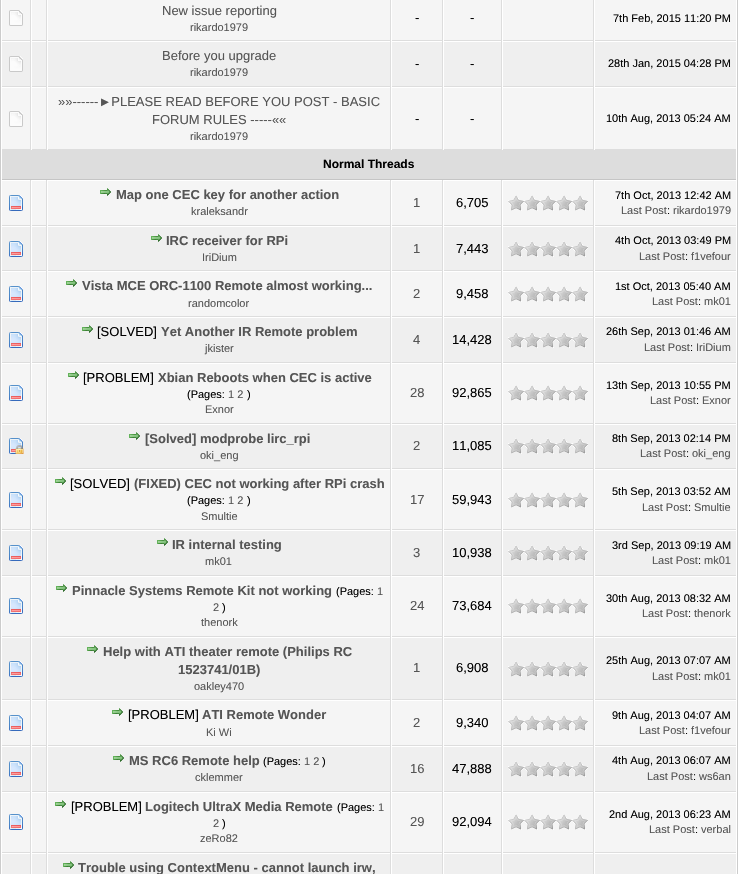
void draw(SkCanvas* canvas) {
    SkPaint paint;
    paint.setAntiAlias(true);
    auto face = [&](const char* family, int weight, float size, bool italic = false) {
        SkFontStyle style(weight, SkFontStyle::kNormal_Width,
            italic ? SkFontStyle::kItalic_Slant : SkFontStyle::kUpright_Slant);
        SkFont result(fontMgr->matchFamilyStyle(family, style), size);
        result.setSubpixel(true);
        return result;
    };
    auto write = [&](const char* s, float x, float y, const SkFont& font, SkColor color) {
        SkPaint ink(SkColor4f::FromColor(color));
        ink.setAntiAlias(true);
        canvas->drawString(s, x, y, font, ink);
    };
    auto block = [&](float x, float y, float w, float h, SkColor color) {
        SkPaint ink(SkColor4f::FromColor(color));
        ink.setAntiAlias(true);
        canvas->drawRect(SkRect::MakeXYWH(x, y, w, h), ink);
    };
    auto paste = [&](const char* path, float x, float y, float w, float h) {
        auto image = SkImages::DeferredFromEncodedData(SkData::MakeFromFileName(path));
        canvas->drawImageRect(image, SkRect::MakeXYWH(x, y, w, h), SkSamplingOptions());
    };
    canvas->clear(SK_ColorWHITE);
    paint.setStyle(SkPaint::kStroke_Style);
    paint.setStrokeWidth(1);
    paint.setColor(SkColorSetRGB(204, 204, 204));
    canvas->drawRect(SkRect::MakeXYWH(0.5f, -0.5f, 737, 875), paint);
    block(2, 0, 28, 40, SkColorSetRGB(245, 245, 245));
    block(30, 0, 1, 150, SkColorSetRGB(221, 221, 221));
    block(2, 40, 29, 1, SkColorSetRGB(221, 221, 221));
    paste("pic1.png", 9, 10, 14, 16);
    block(32, 0, 14, 40, SkColorSetRGB(245, 245, 245));
    block(46, 0, 1, 150, SkColorSetRGB(221, 221, 221));
    block(31, 40, 16, 1, SkColorSetRGB(221, 221, 221));
    block(31, 40, 1, 1, SK_ColorWHITE);
    block(48, 0, 342, 40, SkColorSetRGB(245, 245, 245));
    block(390, 0, 1, 150, SkColorSetRGB(221, 221, 221));
    block(47, 40, 344, 1, SkColorSetRGB(221, 221, 221));
    block(47, 40, 1, 1, SK_ColorWHITE);
    auto kFont1 = face("Liberation Sans", 400, 13);
    write("New issue reporting", 162, 15, kFont1, SkColorSetRGB(85, 85, 85));
    auto kFont2 = face("Liberation Sans", 400, 11);
    write("rikardo1979", 190, 31, kFont2, SkColorSetRGB(85, 85, 85));
    block(503, 0, 90, 40, SkColorSetRGB(245, 245, 245));
    block(593, 0, 1, 150, SkColorSetRGB(221, 221, 221));
    block(502, 40, 234, 1, SkColorSetRGB(221, 221, 221));
    block(502, 40, 1, 1, SK_ColorWHITE);
    block(392, 0, 50, 40, SkColorSetRGB(245, 245, 245));
    block(442, 0, 1, 150, SkColorSetRGB(221, 221, 221));
    block(391, 40, 52, 1, SkColorSetRGB(221, 221, 221));
    block(391, 40, 1, 1, SK_ColorWHITE);
    write("-", 415, 22, kFont1, SK_ColorBLACK);
    block(444, 0, 57, 40, SkColorSetRGB(245, 245, 245));
    block(501, 0, 1, 150, SkColorSetRGB(221, 221, 221));
    block(443, 40, 59, 1, SkColorSetRGB(221, 221, 221));
    block(443, 40, 1, 1, SK_ColorWHITE);
    write("-", 470, 22, kFont1, SK_ColorBLACK);
    block(595, 0, 141, 40, SkColorSetRGB(245, 245, 245));
    block(594, 40, 1, 1, SK_ColorWHITE);
    write("7th Feb, 2015 11:20 PM", 613, 22, kFont2, SK_ColorBLACK);
    block(2, 42, 28, 44, SkColorSetRGB(239, 239, 239));
    block(2, 86, 734, 1, SkColorSetRGB(221, 221, 221));
    paste("pic2.png", 9, 56, 14, 16);
    block(32, 42, 14, 44, SkColorSetRGB(239, 239, 239));
    block(31, 86, 1, 1, SK_ColorWHITE);
    block(48, 42, 342, 44, SkColorSetRGB(239, 239, 239));
    block(47, 86, 1, 1, SK_ColorWHITE);
    write("Before you upgrade", 162, 60, kFont1, SkColorSetRGB(85, 85, 85));
    write("rikardo1979", 190, 76, kFont2, SkColorSetRGB(85, 85, 85));
    block(392, 42, 50, 44, SkColorSetRGB(239, 239, 239));
    block(391, 86, 1, 1, SK_ColorWHITE);
    write("-", 415, 68, kFont1, SK_ColorBLACK);
    block(444, 42, 57, 44, SkColorSetRGB(239, 239, 239));
    block(443, 86, 1, 1, SK_ColorWHITE);
    write("-", 470, 68, kFont1, SK_ColorBLACK);
    block(503, 42, 90, 44, SkColorSetRGB(239, 239, 239));
    block(502, 86, 1, 1, SK_ColorWHITE);
    block(595, 42, 141, 44, SkColorSetRGB(239, 239, 239));
    block(594, 86, 1, 1, SK_ColorWHITE);
    write("28th Jan, 2015 04:28 PM", 608, 67, kFont2, SK_ColorBLACK);
    block(2, 88, 28, 61, SkColorSetRGB(245, 245, 245));
    block(2, 149, 734, 30, SkColorSetRGB(221, 221, 221));
    paste("pic1.png", 9, 111, 14, 16);
    block(32, 88, 14, 61, SkColorSetRGB(245, 245, 245));
    block(31, 149, 1, 1, SK_ColorWHITE);
    block(48, 88, 342, 61, SkColorSetRGB(245, 245, 245));
    block(47, 149, 1, 1, SK_ColorWHITE);
    write("»»------►PLEASE READ BEFORE YOU POST - BASIC", 58, 106, kFont1, SkColorSetRGB(85, 85, 85));
    write("FORUM RULES -----««", 152, 124, kFont1, SkColorSetRGB(85, 85, 85));
    write("rikardo1979", 190, 140, kFont2, SkColorSetRGB(85, 85, 85));
    block(392, 88, 50, 61, SkColorSetRGB(245, 245, 245));
    block(391, 149, 1, 1, SK_ColorWHITE);
    write("-", 415, 123, kFont1, SK_ColorBLACK);
    block(444, 88, 57, 61, SkColorSetRGB(245, 245, 245));
    block(443, 149, 1, 1, SK_ColorWHITE);
    write("-", 470, 123, kFont1, SK_ColorBLACK);
    block(503, 88, 90, 61, SkColorSetRGB(245, 245, 245));
    block(502, 149, 1, 1, SK_ColorWHITE);
    block(595, 88, 141, 61, SkColorSetRGB(245, 245, 245));
    block(594, 149, 1, 1, SK_ColorWHITE);
    write("10th Aug, 2013 05:24 AM", 606, 122, kFont2, SK_ColorBLACK);
    block(2, 179, 734, 1, SkColorSetRGB(197, 197, 197));
    auto kFont3 = face("Liberation Sans", 700, 12);
    write("Normal Threads", 323, 168, kFont3, SK_ColorBLACK);
    block(2, 181, 28, 44, SkColorSetRGB(245, 245, 245));
    block(30, 180, 1, 694, SkColorSetRGB(221, 221, 221));
    block(2, 225, 29, 1, SkColorSetRGB(221, 221, 221));
    paste("pic3.png", 9, 195, 14, 16);
    block(32, 181, 14, 44, SkColorSetRGB(245, 245, 245));
    block(46, 180, 1, 694, SkColorSetRGB(221, 221, 221));
    block(31, 225, 16, 1, SkColorSetRGB(221, 221, 221));
    block(31, 225, 1, 1, SK_ColorWHITE);
    block(48, 181, 342, 44, SkColorSetRGB(245, 245, 245));
    block(390, 180, 1, 694, SkColorSetRGB(221, 221, 221));
    block(47, 225, 344, 1, SkColorSetRGB(221, 221, 221));
    block(47, 225, 1, 1, SK_ColorWHITE);
    paste("pic4.png", 100, 188, 11, 8);
    auto kFont4 = face("Liberation Sans", 700, 13);
    write("Map one CEC key for another action", 116, 199, kFont4, SkColorSetRGB(85, 85, 85));
    write("kraleksandr", 191, 215, kFont2, SkColorSetRGB(85, 85, 85));
    block(503, 181, 90, 44, SkColorSetRGB(245, 245, 245));
    block(593, 180, 1, 694, SkColorSetRGB(221, 221, 221));
    block(502, 225, 234, 1, SkColorSetRGB(221, 221, 221));
    block(502, 225, 1, 1, SK_ColorWHITE);
    paste("pic5.png", 508, 195, 80, 16);
    block(392, 181, 50, 44, SkColorSetRGB(245, 245, 245));
    block(442, 180, 1, 694, SkColorSetRGB(221, 221, 221));
    block(391, 225, 52, 1, SkColorSetRGB(221, 221, 221));
    block(391, 225, 1, 1, SK_ColorWHITE);
    write("1", 413, 207, kFont1, SkColorSetRGB(85, 85, 85));
    block(444, 181, 57, 44, SkColorSetRGB(245, 245, 245));
    block(501, 180, 1, 694, SkColorSetRGB(221, 221, 221));
    block(443, 225, 59, 1, SkColorSetRGB(221, 221, 221));
    block(443, 225, 1, 1, SK_ColorWHITE);
    write("6,705", 456, 207, kFont1, SK_ColorBLACK);
    block(595, 181, 141, 44, SkColorSetRGB(245, 245, 245));
    block(594, 225, 1, 1, SK_ColorWHITE);
    write("7th Oct, 2013 12:42 AM", 615, 199, kFont2, SK_ColorBLACK);
    write("Last Post", 621, 214, kFont2, SkColorSetRGB(85, 85, 85));
    write(":", 667, 214, kFont2, SK_ColorBLACK);
    write("rikardo1979", 673, 214, kFont2, SkColorSetRGB(85, 85, 85));
    block(2, 227, 28, 43, SkColorSetRGB(239, 239, 239));
    block(2, 270, 734, 1, SkColorSetRGB(221, 221, 221));
    paste("pic6.png", 9, 241, 14, 16);
    block(32, 227, 14, 43, SkColorSetRGB(239, 239, 239));
    block(31, 270, 1, 1, SK_ColorWHITE);
    block(48, 227, 342, 43, SkColorSetRGB(239, 239, 239));
    block(47, 270, 1, 1, SK_ColorWHITE);
    paste("pic7.png", 151, 234, 11, 8);
    write("IRC receiver for RPi", 166, 245, kFont4, SkColorSetRGB(85, 85, 85));
    write("IriDium", 202, 261, kFont2, SkColorSetRGB(85, 85, 85));
    block(392, 227, 50, 43, SkColorSetRGB(239, 239, 239));
    block(391, 270, 1, 1, SK_ColorWHITE);
    write("1", 413, 253, kFont1, SkColorSetRGB(85, 85, 85));
    block(444, 227, 57, 43, SkColorSetRGB(239, 239, 239));
    block(443, 270, 1, 1, SK_ColorWHITE);
    write("7,443", 456, 253, kFont1, SK_ColorBLACK);
    block(503, 227, 90, 43, SkColorSetRGB(239, 239, 239));
    block(502, 270, 1, 1, SK_ColorWHITE);
    paste("pic8.png", 508, 241, 80, 16);
    block(595, 227, 141, 43, SkColorSetRGB(239, 239, 239));
    block(594, 270, 1, 1, SK_ColorWHITE);
    write("4th Oct, 2013 03:49 PM", 615, 244, kFont2, SK_ColorBLACK);
    write("Last Post", 639, 260, kFont2, SkColorSetRGB(85, 85, 85));
    write(":", 685, 260, kFont2, SK_ColorBLACK);
    write("f1vefour", 691, 260, kFont2, SkColorSetRGB(85, 85, 85));
    block(2, 272, 28, 44, SkColorSetRGB(245, 245, 245));
    block(2, 316, 734, 1, SkColorSetRGB(221, 221, 221));
    paste("pic3.png", 9, 286, 14, 16);
    block(32, 272, 14, 44, SkColorSetRGB(245, 245, 245));
    block(31, 316, 1, 1, SK_ColorWHITE);
    block(48, 272, 342, 44, SkColorSetRGB(245, 245, 245));
    block(47, 316, 1, 1, SK_ColorWHITE);
    paste("pic4.png", 66, 279, 11, 8);
    write("Vista MCE ORC-1100 Remote almost working...", 82, 290, kFont4, SkColorSetRGB(85, 85, 85));
    write("randomcolor", 188, 307, kFont2, SkColorSetRGB(85, 85, 85));
    block(392, 272, 50, 44, SkColorSetRGB(245, 245, 245));
    block(391, 316, 1, 1, SK_ColorWHITE);
    write("2", 413, 298, kFont1, SkColorSetRGB(85, 85, 85));
    block(444, 272, 57, 44, SkColorSetRGB(245, 245, 245));
    block(443, 316, 1, 1, SK_ColorWHITE);
    write("9,458", 456, 298, kFont1, SK_ColorBLACK);
    block(503, 272, 90, 44, SkColorSetRGB(245, 245, 245));
    block(502, 316, 1, 1, SK_ColorWHITE);
    paste("pic5.png", 508, 286, 80, 16);
    block(595, 272, 141, 44, SkColorSetRGB(245, 245, 245));
    block(594, 316, 1, 1, SK_ColorWHITE);
    write("1st Oct, 2013 05:40 AM", 615, 290, kFont2, SK_ColorBLACK);
    write("Last Post", 652, 305, kFont2, SkColorSetRGB(85, 85, 85));
    write(":", 698, 305, kFont2, SK_ColorBLACK);
    write("mk01", 704, 305, kFont2, SkColorSetRGB(85, 85, 85));
    block(2, 318, 28, 44, SkColorSetRGB(239, 239, 239));
    block(2, 362, 734, 1, SkColorSetRGB(221, 221, 221));
    paste("pic6.png", 9, 332, 14, 16);
    block(32, 318, 14, 44, SkColorSetRGB(239, 239, 239));
    block(31, 362, 1, 1, SK_ColorWHITE);
    block(48, 318, 342, 44, SkColorSetRGB(239, 239, 239));
    block(47, 362, 1, 1, SK_ColorWHITE);
    paste("pic7.png", 82, 325, 11, 8);
    write("[SOLVED]", 97, 336, kFont1, SK_ColorBLACK);
    write("Yet Another IR Remote problem", 161, 336, kFont4, SkColorSetRGB(85, 85, 85));
    write("jkister", 205, 352, kFont2, SkColorSetRGB(85, 85, 85));
    block(392, 318, 50, 44, SkColorSetRGB(239, 239, 239));
    block(391, 362, 1, 1, SK_ColorWHITE);
    write("4", 413, 344, kFont1, SkColorSetRGB(85, 85, 85));
    block(444, 318, 57, 44, SkColorSetRGB(239, 239, 239));
    block(443, 362, 1, 1, SK_ColorWHITE);
    write("14,428", 452, 344, kFont1, SK_ColorBLACK);
    block(503, 318, 90, 44, SkColorSetRGB(239, 239, 239));
    block(502, 362, 1, 1, SK_ColorWHITE);
    paste("pic8.png", 508, 332, 80, 16);
    block(595, 318, 141, 44, SkColorSetRGB(239, 239, 239));
    block(594, 362, 1, 1, SK_ColorWHITE);
    write("26th Sep, 2013 01:46 AM", 606, 335, kFont2, SK_ColorBLACK);
    write("Last Post", 644, 351, kFont2, SkColorSetRGB(85, 85, 85));
    write(":", 690, 351, kFont2, SK_ColorBLACK);
    write("IriDium", 696, 351, kFont2, SkColorSetRGB(85, 85, 85));
    block(2, 364, 28, 59, SkColorSetRGB(245, 245, 245));
    block(2, 423, 734, 1, SkColorSetRGB(221, 221, 221));
    paste("pic3.png", 9, 385, 14, 16);
    block(32, 364, 14, 59, SkColorSetRGB(245, 245, 245));
    block(31, 423, 1, 1, SK_ColorWHITE);
    block(48, 364, 342, 59, SkColorSetRGB(245, 245, 245));
    block(47, 423, 1, 1, SK_ColorWHITE);
    paste("pic4.png", 68, 371, 11, 8);
    write("[PROBLEM]", 83, 382, kFont1, SK_ColorBLACK);
    write("Xbian Reboots when CEC is active", 158, 382, kFont4, SkColorSetRGB(85, 85, 85));
    write("(Pages:", 187, 398, kFont2, SK_ColorBLACK);
    write("1 2", 228, 398, kFont2, SkColorSetRGB(85, 85, 85));
    write(")", 247, 398, kFont2, SK_ColorBLACK);
    write("Exnor", 205, 413, kFont2, SkColorSetRGB(85, 85, 85));
    block(392, 364, 50, 59, SkColorSetRGB(245, 245, 245));
    block(391, 423, 1, 1, SK_ColorWHITE);
    write("28", 410, 397, kFont1, SkColorSetRGB(85, 85, 85));
    block(444, 364, 57, 59, SkColorSetRGB(245, 245, 245));
    block(443, 423, 1, 1, SK_ColorWHITE);
    write("92,865", 452, 397, kFont1, SK_ColorBLACK);
    block(503, 364, 90, 59, SkColorSetRGB(245, 245, 245));
    block(502, 423, 1, 1, SK_ColorWHITE);
    paste("pic5.png", 508, 385, 80, 16);
    block(595, 364, 141, 59, SkColorSetRGB(245, 245, 245));
    block(594, 423, 1, 1, SK_ColorWHITE);
    write("13th Sep, 2013 10:55 PM", 606, 389, kFont2, SK_ColorBLACK);
    write("Last Post", 650, 404, kFont2, SkColorSetRGB(85, 85, 85));
    write(":", 696, 404, kFont2, SK_ColorBLACK);
    write("Exnor", 702, 404, kFont2, SkColorSetRGB(85, 85, 85));
    block(2, 425, 28, 43, SkColorSetRGB(239, 239, 239));
    block(2, 468, 734, 1, SkColorSetRGB(221, 221, 221));
    paste("pic9.png", 9, 438, 15, 16);
    block(32, 425, 14, 43, SkColorSetRGB(239, 239, 239));
    block(31, 468, 1, 1, SK_ColorWHITE);
    block(48, 425, 342, 43, SkColorSetRGB(239, 239, 239));
    block(47, 468, 1, 1, SK_ColorWHITE);
    paste("pic7.png", 129, 432, 11, 8);
    write("[Solved] modprobe lirc_rpi", 145, 443, kFont4, SkColorSetRGB(85, 85, 85));
    write("oki_eng", 200, 459, kFont2, SkColorSetRGB(85, 85, 85));
    block(392, 425, 50, 43, SkColorSetRGB(239, 239, 239));
    block(391, 468, 1, 1, SK_ColorWHITE);
    write("2", 413, 450, kFont1, SkColorSetRGB(85, 85, 85));
    block(444, 425, 57, 43, SkColorSetRGB(239, 239, 239));
    block(443, 468, 1, 1, SK_ColorWHITE);
    write("11,085", 452, 450, kFont1, SK_ColorBLACK);
    block(503, 425, 90, 43, SkColorSetRGB(239, 239, 239));
    block(502, 468, 1, 1, SK_ColorWHITE);
    paste("pic8.png", 508, 438, 80, 16);
    block(595, 425, 141, 43, SkColorSetRGB(239, 239, 239));
    block(594, 468, 1, 1, SK_ColorWHITE);
    write("8th Sep, 2013 02:14 PM", 612, 442, kFont2, SK_ColorBLACK);
    write("Last Post", 640, 457, kFont2, SkColorSetRGB(85, 85, 85));
    write(":", 686, 457, kFont2, SK_ColorBLACK);
    write("oki_eng", 692, 457, kFont2, SkColorSetRGB(85, 85, 85));
    block(2, 470, 28, 59, SkColorSetRGB(245, 245, 245));
    block(2, 529, 734, 1, SkColorSetRGB(221, 221, 221));
    paste("pic3.png", 9, 492, 14, 16);
    block(32, 470, 14, 59, SkColorSetRGB(245, 245, 245));
    block(31, 529, 1, 1, SK_ColorWHITE);
    block(48, 470, 342, 59, SkColorSetRGB(245, 245, 245));
    block(47, 529, 1, 1, SK_ColorWHITE);
    paste("pic4.png", 55, 477, 11, 8);
    write("[SOLVED]", 70, 488, kFont1, SK_ColorBLACK);
    write("(FIXED) CEC not working after RPi crash", 134, 488, kFont4, SkColorSetRGB(85, 85, 85));
    write("(Pages:", 187, 504, kFont2, SK_ColorBLACK);
    write("1 2", 228, 504, kFont2, SkColorSetRGB(85, 85, 85));
    write(")", 247, 504, kFont2, SK_ColorBLACK);
    write("Smultie", 201, 520, kFont2, SkColorSetRGB(85, 85, 85));
    block(392, 470, 50, 59, SkColorSetRGB(245, 245, 245));
    block(391, 529, 1, 1, SK_ColorWHITE);
    write("17", 410, 504, kFont1, SkColorSetRGB(85, 85, 85));
    block(444, 470, 57, 59, SkColorSetRGB(245, 245, 245));
    block(443, 529, 1, 1, SK_ColorWHITE);
    write("59,943", 452, 504, kFont1, SK_ColorBLACK);
    block(503, 470, 90, 59, SkColorSetRGB(245, 245, 245));
    block(502, 529, 1, 1, SK_ColorWHITE);
    paste("pic5.png", 508, 492, 80, 16);
    block(595, 470, 141, 59, SkColorSetRGB(245, 245, 245));
    block(594, 529, 1, 1, SK_ColorWHITE);
    write("5th Sep, 2013 03:52 AM", 612, 495, kFont2, SK_ColorBLACK);
    write("Last Post", 642, 511, kFont2, SkColorSetRGB(85, 85, 85));
    write(":", 688, 511, kFont2, SK_ColorBLACK);
    write("Smultie", 694, 511, kFont2, SkColorSetRGB(85, 85, 85));
    block(2, 531, 28, 44, SkColorSetRGB(239, 239, 239));
    block(2, 575, 734, 1, SkColorSetRGB(221, 221, 221));
    paste("pic6.png", 9, 545, 14, 16);
    block(32, 531, 14, 44, SkColorSetRGB(239, 239, 239));
    block(31, 575, 1, 1, SK_ColorWHITE);
    block(48, 531, 342, 44, SkColorSetRGB(239, 239, 239));
    block(47, 575, 1, 1, SK_ColorWHITE);
    paste("pic7.png", 157, 538, 11, 8);
    write("IR internal testing", 172, 549, kFont4, SkColorSetRGB(85, 85, 85));
    write("mk01", 205, 565, kFont2, SkColorSetRGB(85, 85, 85));
    block(392, 531, 50, 44, SkColorSetRGB(239, 239, 239));
    block(391, 575, 1, 1, SK_ColorWHITE);
    write("3", 413, 557, kFont1, SkColorSetRGB(85, 85, 85));
    block(444, 531, 57, 44, SkColorSetRGB(239, 239, 239));
    block(443, 575, 1, 1, SK_ColorWHITE);
    write("10,938", 452, 557, kFont1, SK_ColorBLACK);
    block(503, 531, 90, 44, SkColorSetRGB(239, 239, 239));
    block(502, 575, 1, 1, SK_ColorWHITE);
    paste("pic8.png", 508, 545, 80, 16);
    block(595, 531, 141, 44, SkColorSetRGB(239, 239, 239));
    block(594, 575, 1, 1, SK_ColorWHITE);
    write("3rd Sep, 2013 09:19 AM", 612, 549, kFont2, SK_ColorBLACK);
    write("Last Post", 652, 564, kFont2, SkColorSetRGB(85, 85, 85));
    write(":", 698, 564, kFont2, SK_ColorBLACK);
    write("mk01", 704, 564, kFont2, SkColorSetRGB(85, 85, 85));
    block(2, 577, 28, 59, SkColorSetRGB(245, 245, 245));
    block(2, 636, 734, 1, SkColorSetRGB(221, 221, 221));
    paste("pic3.png", 9, 598, 14, 16);
    block(32, 577, 14, 59, SkColorSetRGB(245, 245, 245));
    block(31, 636, 1, 1, SK_ColorWHITE);
    block(48, 577, 342, 59, SkColorSetRGB(245, 245, 245));
    block(47, 636, 1, 1, SK_ColorWHITE);
    paste("pic4.png", 56, 584, 11, 8);
    write("Pinnacle Systems Remote Kit not working", 72, 595, kFont4, SkColorSetRGB(85, 85, 85));
    write("(Pages:", 336, 595, kFont2, SK_ColorBLACK);
    write("1", 377, 595, kFont2, SkColorSetRGB(85, 85, 85));
    write("2", 213, 611, kFont2, SkColorSetRGB(85, 85, 85));
    write(")", 222, 611, kFont2, SK_ColorBLACK);
    write("thenork", 201, 626, kFont2, SkColorSetRGB(85, 85, 85));
    block(392, 577, 50, 59, SkColorSetRGB(245, 245, 245));
    block(391, 636, 1, 1, SK_ColorWHITE);
    write("24", 410, 610, kFont1, SkColorSetRGB(85, 85, 85));
    block(444, 577, 57, 59, SkColorSetRGB(245, 245, 245));
    block(443, 636, 1, 1, SK_ColorWHITE);
    write("73,684", 452, 610, kFont1, SK_ColorBLACK);
    block(503, 577, 90, 59, SkColorSetRGB(245, 245, 245));
    block(502, 636, 1, 1, SK_ColorWHITE);
    paste("pic5.png", 508, 598, 80, 16);
    block(595, 577, 141, 59, SkColorSetRGB(245, 245, 245));
    block(594, 636, 1, 1, SK_ColorWHITE);
    write("30th Aug, 2013 08:32 AM", 606, 602, kFont2, SK_ColorBLACK);
    write("Last Post", 642, 617, kFont2, SkColorSetRGB(85, 85, 85));
    write(":", 688, 617, kFont2, SK_ColorBLACK);
    write("thenork", 694, 617, kFont2, SkColorSetRGB(85, 85, 85));
    block(2, 638, 28, 61, SkColorSetRGB(239, 239, 239));
    block(2, 699, 734, 1, SkColorSetRGB(221, 221, 221));
    paste("pic6.png", 9, 661, 14, 16);
    block(32, 638, 14, 61, SkColorSetRGB(239, 239, 239));
    block(31, 699, 1, 1, SK_ColorWHITE);
    block(48, 638, 342, 61, SkColorSetRGB(239, 239, 239));
    block(47, 699, 1, 1, SK_ColorWHITE);
    paste("pic7.png", 87, 645, 11, 8);
    write("Help with ATI theater remote (Philips RC", 103, 656, kFont4, SkColorSetRGB(85, 85, 85));
    write("1523741/01B)", 178, 674, kFont4, SkColorSetRGB(85, 85, 85));
    write("oakley470", 194, 690, kFont2, SkColorSetRGB(85, 85, 85));
    block(392, 638, 50, 61, SkColorSetRGB(239, 239, 239));
    block(391, 699, 1, 1, SK_ColorWHITE);
    write("1", 413, 672, kFont1, SkColorSetRGB(85, 85, 85));
    block(444, 638, 57, 61, SkColorSetRGB(239, 239, 239));
    block(443, 699, 1, 1, SK_ColorWHITE);
    write("6,908", 456, 672, kFont1, SK_ColorBLACK);
    block(503, 638, 90, 61, SkColorSetRGB(239, 239, 239));
    block(502, 699, 1, 1, SK_ColorWHITE);
    paste("pic8.png", 508, 661, 80, 16);
    block(595, 638, 141, 61, SkColorSetRGB(239, 239, 239));
    block(594, 699, 1, 1, SK_ColorWHITE);
    write("25th Aug, 2013 07:07 AM", 606, 664, kFont2, SK_ColorBLACK);
    write("Last Post", 652, 680, kFont2, SkColorSetRGB(85, 85, 85));
    write(":", 698, 680, kFont2, SK_ColorBLACK);
    write("mk01", 704, 680, kFont2, SkColorSetRGB(85, 85, 85));
    block(2, 701, 28, 44, SkColorSetRGB(245, 245, 245));
    block(2, 745, 734, 1, SkColorSetRGB(221, 221, 221));
    paste("pic3.png", 9, 715, 14, 16);
    block(32, 701, 14, 44, SkColorSetRGB(245, 245, 245));
    block(31, 745, 1, 1, SK_ColorWHITE);
    block(48, 701, 342, 44, SkColorSetRGB(245, 245, 245));
    block(47, 745, 1, 1, SK_ColorWHITE);
    paste("pic4.png", 112, 708, 11, 8);
    write("[PROBLEM]", 128, 719, kFont1, SK_ColorBLACK);
    write("ATI Remote Wonder", 202, 719, kFont4, SkColorSetRGB(85, 85, 85));
    write("Ki Wi", 206, 736, kFont2, SkColorSetRGB(85, 85, 85));
    block(392, 701, 50, 44, SkColorSetRGB(245, 245, 245));
    block(391, 745, 1, 1, SK_ColorWHITE);
    write("2", 413, 727, kFont1, SkColorSetRGB(85, 85, 85));
    block(444, 701, 57, 44, SkColorSetRGB(245, 245, 245));
    block(443, 745, 1, 1, SK_ColorWHITE);
    write("9,340", 456, 727, kFont1, SK_ColorBLACK);
    block(503, 701, 90, 44, SkColorSetRGB(245, 245, 245));
    block(502, 745, 1, 1, SK_ColorWHITE);
    paste("pic5.png", 508, 715, 80, 16);
    block(595, 701, 141, 44, SkColorSetRGB(245, 245, 245));
    block(594, 745, 1, 1, SK_ColorWHITE);
    write("9th Aug, 2013 04:07 AM", 612, 719, kFont2, SK_ColorBLACK);
    write("Last Post", 639, 734, kFont2, SkColorSetRGB(85, 85, 85));
    write(":", 685, 734, kFont2, SK_ColorBLACK);
    write("f1vefour", 691, 734, kFont2, SkColorSetRGB(85, 85, 85));
    block(2, 747, 28, 44, SkColorSetRGB(239, 239, 239));
    block(2, 791, 734, 1, SkColorSetRGB(221, 221, 221));
    paste("pic6.png", 9, 761, 14, 16);
    block(32, 747, 14, 44, SkColorSetRGB(239, 239, 239));
    block(31, 791, 1, 1, SK_ColorWHITE);
    block(48, 747, 342, 44, SkColorSetRGB(239, 239, 239));
    block(47, 791, 1, 1, SK_ColorWHITE);
    paste("pic7.png", 113, 754, 11, 8);
    write("MS RC6 Remote help", 129, 765, kFont4, SkColorSetRGB(85, 85, 85));
    write("(Pages:", 263, 765, kFont2, SK_ColorBLACK);
    write("1 2", 304, 765, kFont2, SkColorSetRGB(85, 85, 85));
    write(")", 322, 765, kFont2, SK_ColorBLACK);
    write("cklemmer", 195, 781, kFont2, SkColorSetRGB(85, 85, 85));
    block(392, 747, 50, 44, SkColorSetRGB(239, 239, 239));
    block(391, 791, 1, 1, SK_ColorWHITE);
    write("16", 410, 773, kFont1, SkColorSetRGB(85, 85, 85));
    block(444, 747, 57, 44, SkColorSetRGB(239, 239, 239));
    block(443, 791, 1, 1, SK_ColorWHITE);
    write("47,888", 452, 773, kFont1, SK_ColorBLACK);
    block(503, 747, 90, 44, SkColorSetRGB(239, 239, 239));
    block(502, 791, 1, 1, SK_ColorWHITE);
    paste("pic8.png", 508, 761, 80, 16);
    block(595, 747, 141, 44, SkColorSetRGB(239, 239, 239));
    block(594, 791, 1, 1, SK_ColorWHITE);
    write("4th Aug, 2013 06:07 AM", 612, 764, kFont2, SK_ColorBLACK);
    write("Last Post", 647, 780, kFont2, SkColorSetRGB(85, 85, 85));
    write(":", 693, 780, kFont2, SK_ColorBLACK);
    write("ws6an", 699, 780, kFont2, SkColorSetRGB(85, 85, 85));
    block(2, 793, 28, 59, SkColorSetRGB(245, 245, 245));
    block(2, 852, 734, 1, SkColorSetRGB(221, 221, 221));
    paste("pic3.png", 9, 814, 14, 16);
    block(32, 793, 14, 59, SkColorSetRGB(245, 245, 245));
    block(31, 852, 1, 1, SK_ColorWHITE);
    block(48, 793, 342, 59, SkColorSetRGB(245, 245, 245));
    block(47, 852, 1, 1, SK_ColorWHITE);
    paste("pic4.png", 55, 800, 11, 8);
    write("[PROBLEM]", 71, 811, kFont1, SK_ColorBLACK);
    write("Logitech UltraX Media Remote", 145, 811, kFont4, SkColorSetRGB(85, 85, 85));
    write("(Pages:", 337, 811, kFont2, SK_ColorBLACK);
    write("1", 378, 811, kFont2, SkColorSetRGB(85, 85, 85));
    write("2", 213, 827, kFont2, SkColorSetRGB(85, 85, 85));
    write(")", 222, 827, kFont2, SK_ColorBLACK);
    write("zeRo82", 200, 842, kFont2, SkColorSetRGB(85, 85, 85));
    block(392, 793, 50, 59, SkColorSetRGB(245, 245, 245));
    block(391, 852, 1, 1, SK_ColorWHITE);
    write("29", 410, 826, kFont1, SkColorSetRGB(85, 85, 85));
    block(444, 793, 57, 59, SkColorSetRGB(245, 245, 245));
    block(443, 852, 1, 1, SK_ColorWHITE);
    write("92,094", 452, 826, kFont1, SK_ColorBLACK);
    block(503, 793, 90, 59, SkColorSetRGB(245, 245, 245));
    block(502, 852, 1, 1, SK_ColorWHITE);
    paste("pic5.png", 508, 814, 80, 16);
    block(595, 793, 141, 59, SkColorSetRGB(245, 245, 245));
    block(594, 852, 1, 1, SK_ColorWHITE);
    write("2nd Aug, 2013 06:23 AM", 609, 818, kFont2, SK_ColorBLACK);
    write("Last Post", 649, 833, kFont2, SkColorSetRGB(85, 85, 85));
    write(":", 695, 833, kFont2, SK_ColorBLACK);
    write("verbal", 701, 833, kFont2, SkColorSetRGB(85, 85, 85));
    block(2, 854, 28, 20, SkColorSetRGB(239, 239, 239));
    block(32, 854, 14, 20, SkColorSetRGB(239, 239, 239));
    block(48, 854, 342, 20, SkColorSetRGB(239, 239, 239));
    paste("pic7.png", 63, 861, 11, 8);
    write("Trouble using ContextMenu - cannot launch irw,", 78, 872, kFont4, SkColorSetRGB(85, 85, 85));
    block(392, 854, 50, 20, SkColorSetRGB(239, 239, 239));
    block(444, 854, 57, 20, SkColorSetRGB(239, 239, 239));
    block(503, 854, 90, 20, SkColorSetRGB(239, 239, 239));
    block(595, 854, 141, 20, SkColorSetRGB(239, 239, 239));
}
